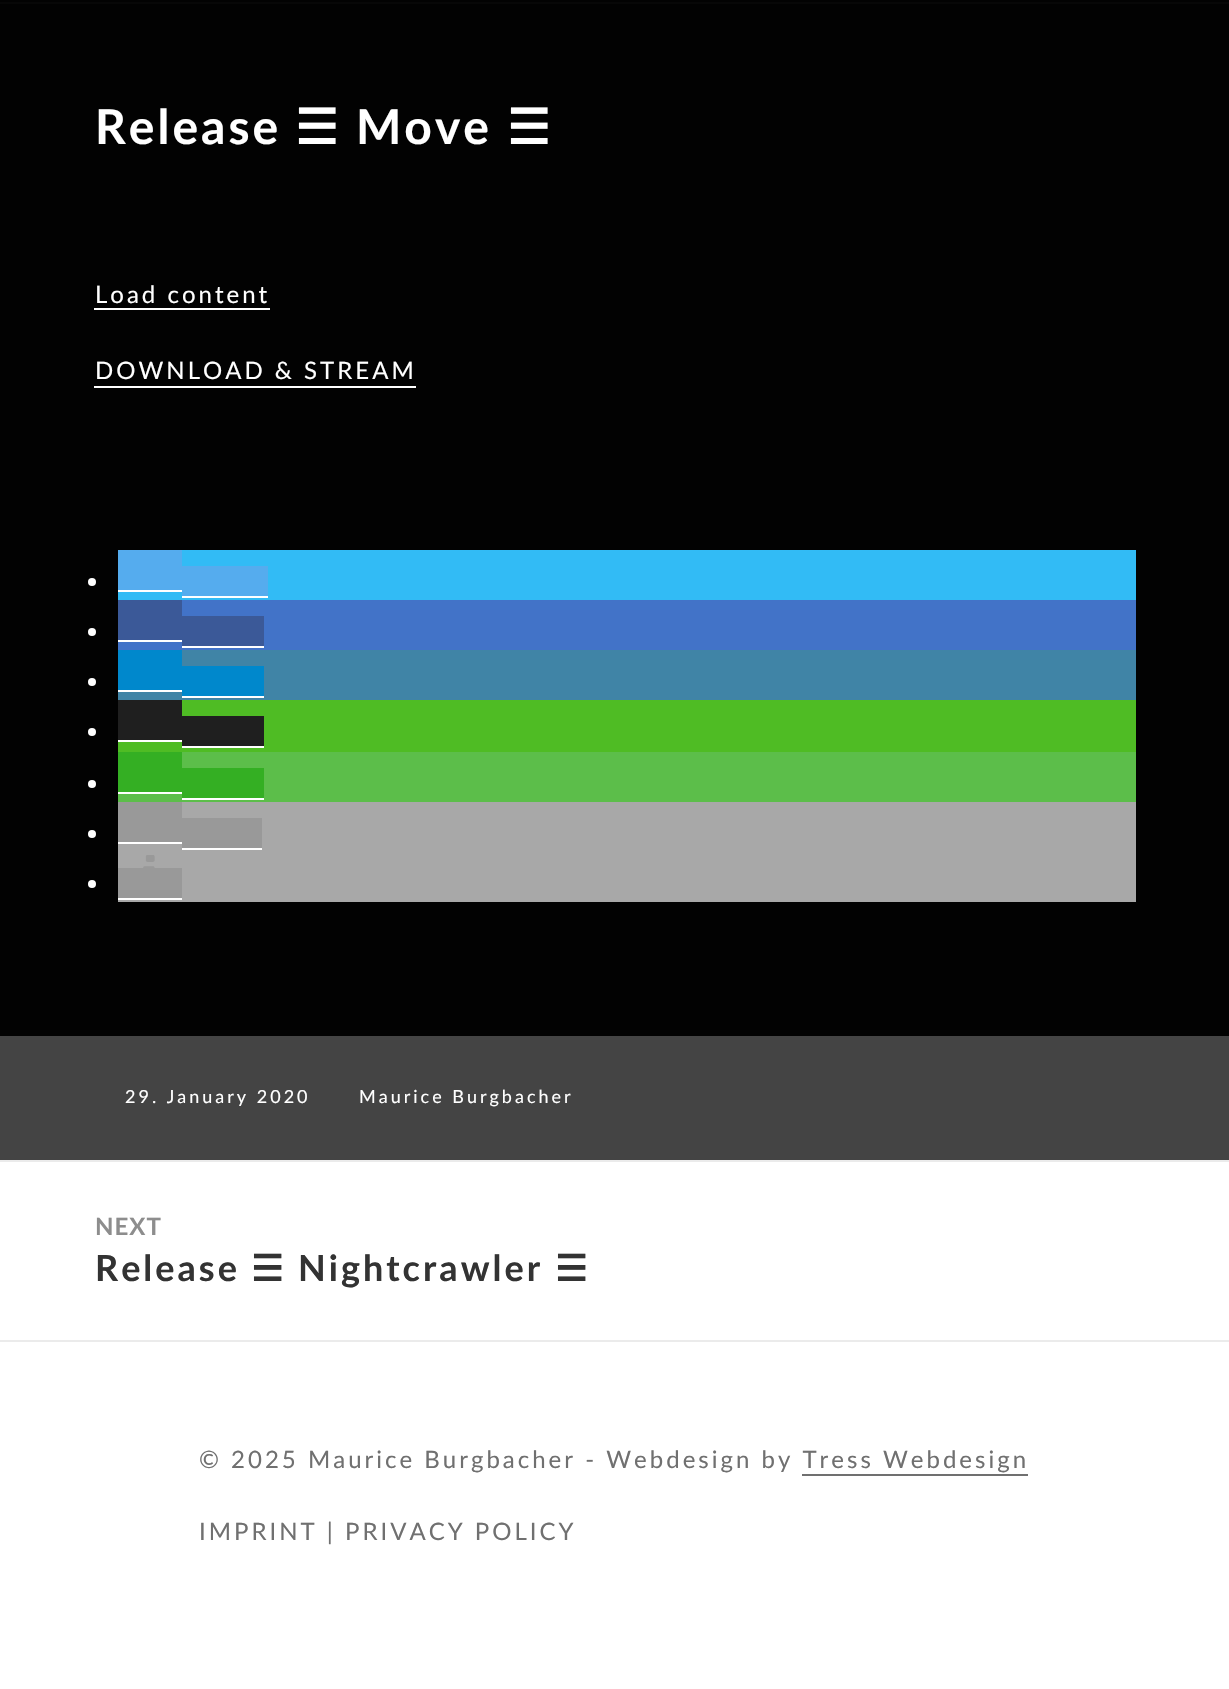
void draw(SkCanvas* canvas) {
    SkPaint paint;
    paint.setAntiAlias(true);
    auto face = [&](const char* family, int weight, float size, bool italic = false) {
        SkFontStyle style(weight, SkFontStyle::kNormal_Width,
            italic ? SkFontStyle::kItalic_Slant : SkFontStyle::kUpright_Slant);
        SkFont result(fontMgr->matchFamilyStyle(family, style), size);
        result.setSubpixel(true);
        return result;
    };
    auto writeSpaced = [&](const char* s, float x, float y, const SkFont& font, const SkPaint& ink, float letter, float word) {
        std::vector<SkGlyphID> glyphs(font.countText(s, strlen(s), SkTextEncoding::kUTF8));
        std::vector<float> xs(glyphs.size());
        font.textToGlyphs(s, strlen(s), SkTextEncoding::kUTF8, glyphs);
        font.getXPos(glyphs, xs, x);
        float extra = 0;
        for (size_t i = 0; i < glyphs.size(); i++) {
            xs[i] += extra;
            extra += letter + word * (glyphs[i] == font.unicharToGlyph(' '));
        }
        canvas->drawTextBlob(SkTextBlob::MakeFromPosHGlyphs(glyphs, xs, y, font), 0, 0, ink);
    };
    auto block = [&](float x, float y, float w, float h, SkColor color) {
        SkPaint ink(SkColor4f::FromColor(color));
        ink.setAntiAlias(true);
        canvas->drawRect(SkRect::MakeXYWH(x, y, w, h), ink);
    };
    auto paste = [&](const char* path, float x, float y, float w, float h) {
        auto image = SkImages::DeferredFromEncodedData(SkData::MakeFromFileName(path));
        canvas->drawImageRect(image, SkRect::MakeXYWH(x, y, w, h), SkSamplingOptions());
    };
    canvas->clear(SkColorSetRGB(2, 2, 2));
    block(0, 2, 1229, 2, SkColorSetRGB(7, 7, 7));
    auto kFont1 = face("Lato", 700, 48);
    paint.setColor(SK_ColorWHITE);
    writeSpaced("Release", 95, 144, kFont1, paint, 3, 0);
    auto kFont2 = face("DejaVu Sans", 700, 48);
    writeSpaced("☰", 295, 144, kFont2, paint, 3, 0);
    writeSpaced("Move", 356, 144, kFont1, paint, 3, 0);
    writeSpaced("☰", 507, 144, kFont2, paint, 3, 0);
    auto kFont3 = face("Lato", 400, 24);
    writeSpaced("Load content", 95, 303, kFont3, paint, 3, 0);
    block(94, 308, 176, 2, SK_ColorWHITE);
    writeSpaced("DOWNLOAD & STREAM", 95, 379, kFont3, paint, 3, 0);
    block(94, 386, 322, 2, SK_ColorWHITE);
    block(118, 550, 1018, 50, SkColorSetRGB(50, 187, 245));
    canvas->drawCircle(92, 582, 4, paint);
    block(118, 550, 64, 40, SkColorSetRGB(85, 172, 238));
    block(182, 566, 78, 30, SkColorSetRGB(85, 172, 238));
    block(260, 566, 8, 32, SkColorSetRGB(85, 172, 238));
    block(118, 590, 64, 2, SK_ColorWHITE);
    block(182, 596, 78, 2, SK_ColorWHITE);
    block(260, 596, 8, 2, SK_ColorWHITE);
    block(118, 600, 1018, 50, SkColorSetRGB(66, 115, 200));
    canvas->drawCircle(92, 632, 4, paint);
    block(118, 600, 64, 40, SkColorSetRGB(59, 89, 152));
    block(182, 616, 82, 30, SkColorSetRGB(59, 89, 152));
    block(118, 640, 64, 2, SK_ColorWHITE);
    block(182, 646, 82, 2, SK_ColorWHITE);
    block(118, 650, 1018, 50, SkColorSetRGB(64, 132, 166));
    canvas->drawCircle(92, 682, 4, paint);
    block(118, 650, 64, 40, SkColorSetRGB(0, 136, 204));
    block(182, 666, 82, 30, SkColorSetRGB(0, 136, 204));
    block(118, 690, 64, 2, SK_ColorWHITE);
    block(182, 696, 82, 2, SK_ColorWHITE);
    block(118, 700, 1018, 52, SkColorSetRGB(79, 188, 36));
    canvas->drawCircle(92, 732, 4, paint);
    block(118, 700, 64, 40, SkColorSetRGB(31, 31, 31));
    block(182, 716, 82, 30, SkColorSetRGB(31, 31, 31));
    block(118, 740, 64, 2, SK_ColorWHITE);
    block(182, 746, 82, 2, SK_ColorWHITE);
    block(118, 752, 1018, 50, SkColorSetRGB(92, 190, 74));
    canvas->drawCircle(92, 784, 4, paint);
    block(118, 752, 64, 40, SkColorSetRGB(52, 175, 35));
    block(182, 768, 82, 30, SkColorSetRGB(52, 175, 35));
    block(118, 792, 64, 2, SK_ColorWHITE);
    block(182, 798, 82, 2, SK_ColorWHITE);
    block(118, 802, 1018, 100, SkColorSetRGB(168, 168, 168));
    canvas->drawCircle(92, 834, 4, paint);
    block(118, 802, 64, 40, SkColorSetRGB(153, 153, 153));
    block(182, 818, 72, 30, SkColorSetRGB(153, 153, 153));
    block(254, 818, 8, 32, SkColorSetRGB(153, 153, 153));
    block(118, 842, 64, 2, SK_ColorWHITE);
    block(182, 848, 72, 2, SK_ColorWHITE);
    block(254, 848, 8, 2, SK_ColorWHITE);
    paste("pic1.png", 143, 855, 12, 13);
    canvas->drawCircle(92, 884, 4, paint);
    block(118, 868, 64, 30, SkColorSetRGB(153, 153, 153));
    block(118, 898, 64, 2, SK_ColorWHITE);
    block(0, 1036, 1229, 124, SkColorSetRGB(68, 68, 68));
    auto kFont4 = face("Lato", 400, 18);
    writeSpaced("29. January 2020", 125, 1103, kFont4, paint, 3, 0);
    writeSpaced("Maurice Burgbacher", 359, 1103, kFont4, paint, 3, 0);
    block(0, 1162, 1229, 178, SK_ColorWHITE);
    block(0, 1160, 1229, 2, SkColorSetRGB(235, 235, 235));
    auto kFont5 = face("Lato", 700, 24);
    paint.setColor(SkColorSetRGB(141, 141, 141));
    writeSpaced("NEXT", 95, 1235, kFont5, paint, 1, 0);
    auto kFont6 = face("Lato", 700, 36);
    paint.setColor(SkColorSetRGB(51, 51, 51));
    writeSpaced("Release", 95, 1281, kFont6, paint, 3, 0);
    auto kFont7 = face("DejaVu Sans", 700, 36);
    writeSpaced("☰", 251, 1281, kFont7, paint, 3, 0);
    writeSpaced("Nightcrawler", 298, 1281, kFont6, paint, 3, 0);
    writeSpaced("☰", 555, 1281, kFont7, paint, 3, 0);
    block(0, 1342, 1229, 347, SK_ColorWHITE);
    block(0, 1340, 1229, 2, SkColorSetRGB(235, 235, 235));
    paint.setColor(SkColorSetRGB(112, 112, 112));
    writeSpaced("© 2025 Maurice Burgbacher - Webdesign by Tress Webdesign", 199, 1468, kFont3, paint, 3, 0);
    block(802, 1474, 226, 2, SkColorSetRGB(112, 112, 112));
    writeSpaced("IMPRINT | PRIVACY POLICY", 199, 1540, kFont3, paint, 3, 0);
}
